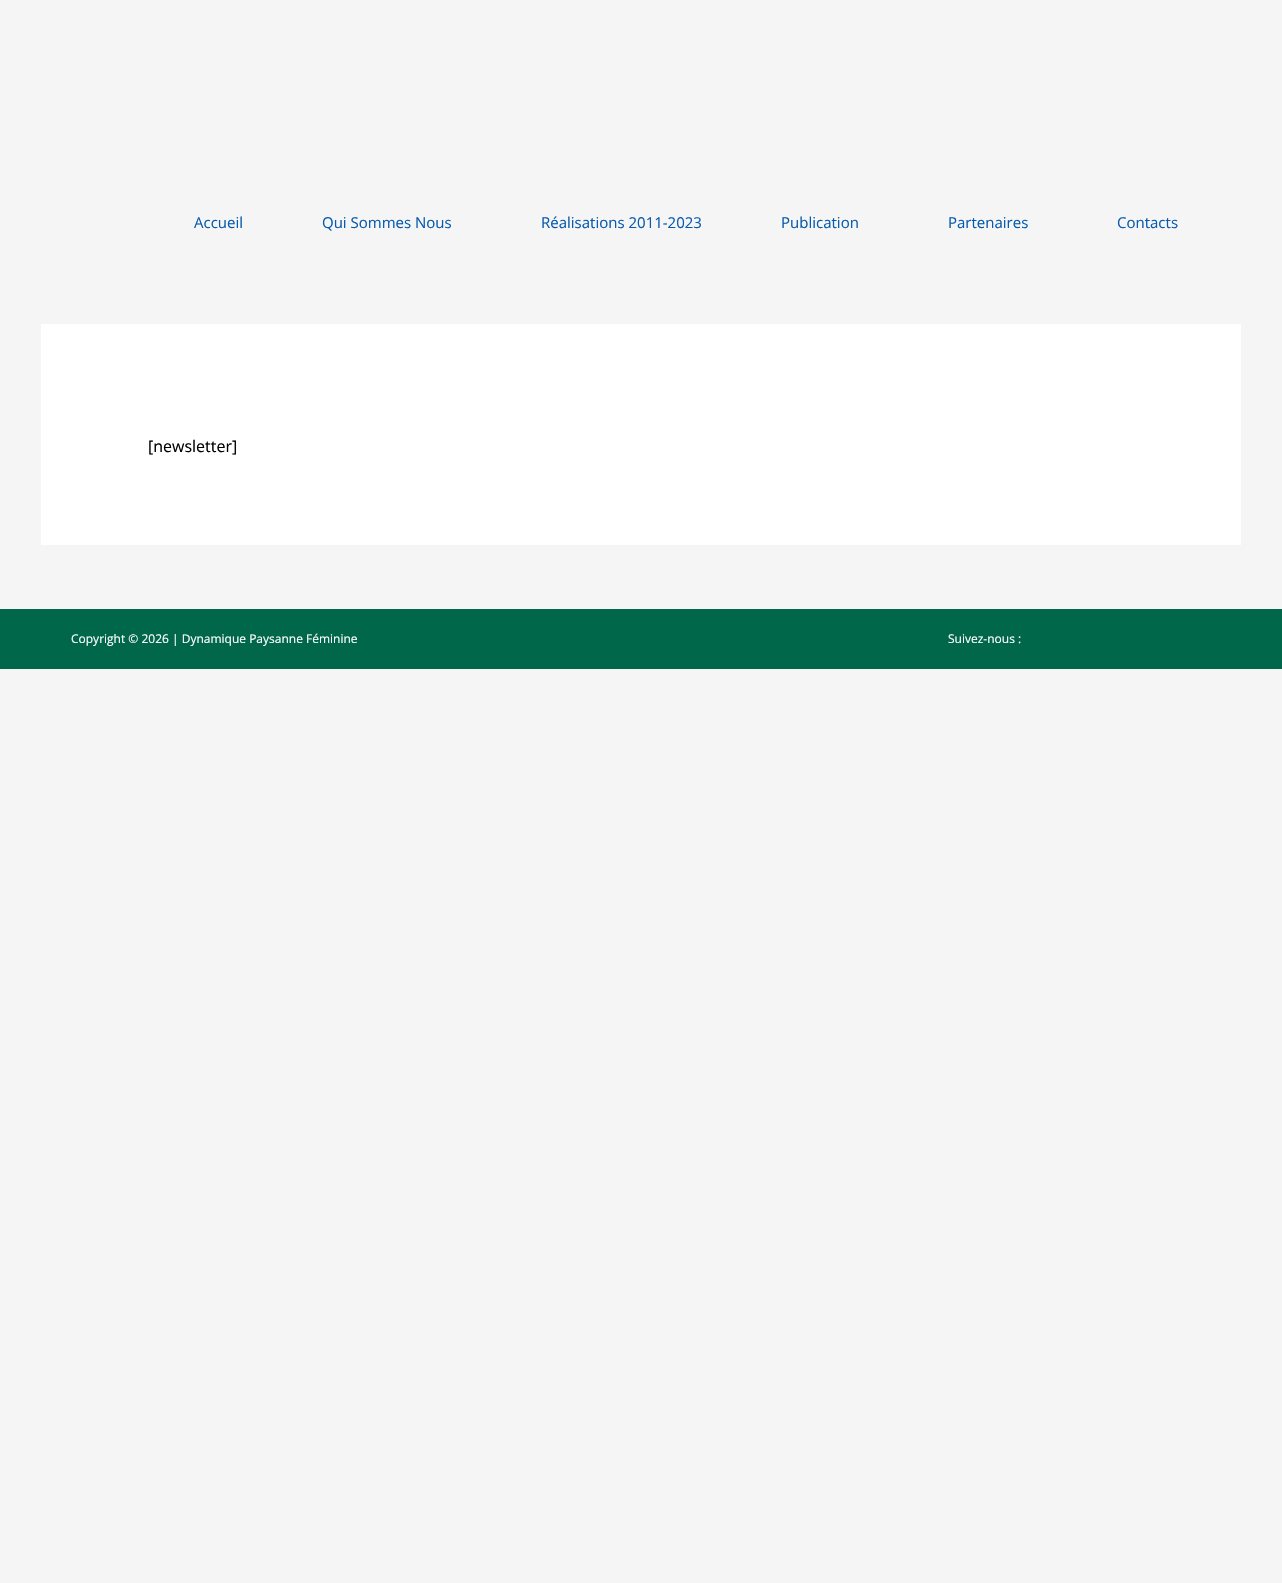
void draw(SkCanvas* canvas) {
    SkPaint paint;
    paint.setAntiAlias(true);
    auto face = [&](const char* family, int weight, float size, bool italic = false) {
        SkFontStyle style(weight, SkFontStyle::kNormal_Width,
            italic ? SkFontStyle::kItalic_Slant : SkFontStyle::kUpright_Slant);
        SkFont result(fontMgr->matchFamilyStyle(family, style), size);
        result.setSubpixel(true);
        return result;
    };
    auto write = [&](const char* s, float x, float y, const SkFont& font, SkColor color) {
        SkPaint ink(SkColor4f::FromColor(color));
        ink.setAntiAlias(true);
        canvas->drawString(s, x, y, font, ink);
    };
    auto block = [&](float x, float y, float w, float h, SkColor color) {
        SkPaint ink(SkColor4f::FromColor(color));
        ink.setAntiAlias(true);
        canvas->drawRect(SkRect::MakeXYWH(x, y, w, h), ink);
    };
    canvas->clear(SkColorSetRGB(245, 245, 245));
    auto kFont1 = face("Open Sans", 400, 15);
    write("Accueil", 194, 228, kFont1, SkColorSetRGB(7, 90, 174));
    write("Qui Sommes Nous", 322, 228, kFont1, SkColorSetRGB(7, 90, 174));
    write("Réalisations 2011-2023", 541, 228, kFont1, SkColorSetRGB(7, 90, 174));
    write("Publication", 781, 228, kFont1, SkColorSetRGB(7, 90, 174));
    write("Partenaires", 948, 228, kFont1, SkColorSetRGB(7, 90, 174));
    write("Contacts", 1117, 228, kFont1, SkColorSetRGB(7, 90, 174));
    block(41, 324, 1200, 221, SK_ColorWHITE);
    auto kFont2 = face("Open Sans", 400, 16);
    write("[newsletter]", 148, 452, kFont2, SK_ColorBLACK);
    block(0, 609, 1282, 60, SkColorSetRGB(0, 103, 74));
    auto kFont3 = face("Open Sans", 400, 12);
    write("Copyright © 2026 | Dynamique Paysanne Féminine", 71, 643, kFont3, SK_ColorWHITE);
    write("Suivez-nous :", 948, 643, kFont3, SK_ColorWHITE);
}
